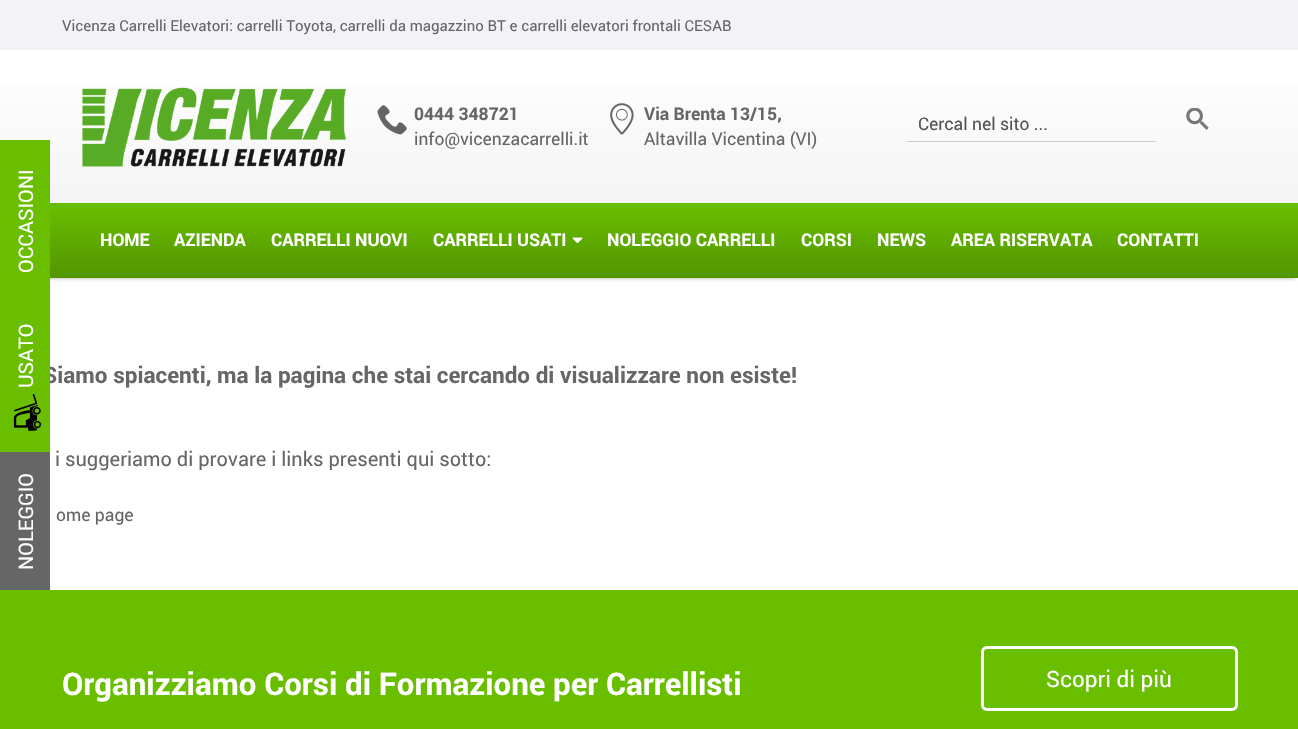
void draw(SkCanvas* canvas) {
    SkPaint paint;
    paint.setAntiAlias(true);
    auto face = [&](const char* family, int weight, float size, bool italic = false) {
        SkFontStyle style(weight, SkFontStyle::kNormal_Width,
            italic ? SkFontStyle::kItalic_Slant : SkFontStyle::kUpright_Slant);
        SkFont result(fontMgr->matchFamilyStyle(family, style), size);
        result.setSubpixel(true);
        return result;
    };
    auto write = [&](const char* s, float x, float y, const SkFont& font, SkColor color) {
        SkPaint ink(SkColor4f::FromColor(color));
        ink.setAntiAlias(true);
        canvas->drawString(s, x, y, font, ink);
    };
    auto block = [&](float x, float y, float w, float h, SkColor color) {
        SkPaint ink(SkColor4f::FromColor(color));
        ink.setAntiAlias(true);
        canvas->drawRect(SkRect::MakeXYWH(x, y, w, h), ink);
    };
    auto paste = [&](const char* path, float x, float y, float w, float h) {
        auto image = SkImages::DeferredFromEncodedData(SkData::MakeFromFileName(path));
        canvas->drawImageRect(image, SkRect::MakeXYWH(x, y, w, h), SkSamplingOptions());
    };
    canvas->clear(SK_ColorWHITE);
    block(0, 0, 1298, 50, SkColorSetRGB(243, 243, 247));
    auto kFont1 = face("Roboto", 400, 15);
    write("Vicenza Carrelli Elevatori: carrelli Toyota, carrelli da magazzino BT e carrelli elevatori frontali CESAB", 62, 31, kFont1, SkColorSetRGB(102, 102, 102));
    {
        const SkColor colors[] = {SK_ColorWHITE, SkColorSetRGB(239, 239, 239)};
        const float stops[] = {0, 1};
        const SkPoint ends[] = {{649, 50}, {649, 278}};
        paint.setShader(SkGradientShader::MakeLinear(ends, colors, stops, 2, SkTileMode::kClamp));
        paint.setAlpha(255);
    }
    canvas->drawRect(SkRect::MakeXYWH(0, 86, 1298, 117), paint);
    paint.setShader(nullptr);
    paint.setColor(SkColorSetARGB(89, 0, 0, 0));
    paint.setMaskFilter(SkMaskFilter::MakeBlur(kNormal_SkBlurStyle, 2));
    canvas->drawRect(SkRect::MakeXYWH(4, 210, 1291, 68), paint);
    paint.setMaskFilter(nullptr);
    auto kFont2 = face("Roboto", 700, 22.5f);
    write("Siamo spiacenti, ma la pagina che stai cercando di visualizzare non esiste!", 43, 383, kFont2, SkColorSetRGB(102, 102, 102));
    block(0, 140, 50, 312, SkColorSetRGB(105, 190, 0));
    auto kFont3 = face("Roboto", 400, 20);
    canvas->save();
    canvas->rotate(-90, 33, 273);
    write("OCCASIONI", 33, 273, kFont3, SK_ColorWHITE);
    canvas->restore();
    canvas->save();
    canvas->rotate(-90, 33, 388);
    write("USATO", 33, 388, kFont3, SK_ColorWHITE);
    canvas->restore();
    paste("pic1.png", 13, 393, 29, 38);
    block(0, 452, 50, 138, SkColorSetRGB(102, 102, 102));
    canvas->save();
    canvas->rotate(-90, 33, 570);
    write("NOLEGGIO", 33, 570, kFont3, SK_ColorWHITE);
    canvas->restore();
    paste("pic2.png", 82, 87, 265, 80);
    paste("pic3.png", 377, 105, 30, 30);
    auto kFont4 = face("Roboto", 700, 17.5f);
    write("0444 348721", 414, 120, kFont4, SkColorSetRGB(102, 102, 102));
    auto kFont5 = face("Roboto", 400, 17.5f);
    write("info@vicenzacarrelli.it", 414, 145, kFont5, SkColorSetRGB(102, 102, 102));
    paste("pic4.png", 610, 103, 24, 32);
    write("Via Brenta 13/15,", 644, 120, kFont4, SkColorSetRGB(102, 102, 102));
    write("Altavilla Vicentina (VI)", 644, 145, kFont5, SkColorSetRGB(102, 102, 102));
    paint.setColor(SkColorSetRGB(204, 204, 204));
    canvas->drawPath(SkPathBuilder().moveTo(1156, 142).lineTo(906, 142).lineTo(908, 141).lineTo(1155, 141).close().detach(), paint);
    write("Cercal nel sito ...", 918, 130, kFont5, SkColorSetRGB(84, 84, 84));
    paste("pic5.png", 1186, 108, 23, 22);
    {
        const SkColor colors[] = {SkColorSetRGB(105, 190, 0), SkColorSetRGB(83, 150, 0)};
        const float stops[] = {0, 1};
        const SkPoint ends[] = {{649, 202}, {649, 278}};
        paint.setShader(SkGradientShader::MakeLinear(ends, colors, stops, 2, SkTileMode::kClamp));
        paint.setAlpha(255);
    }
    canvas->drawRect(SkRect::MakeXYWH(50, 203, 1248, 75), paint);
    write("HOME", 100, 246, kFont4, SK_ColorWHITE);
    write("AZIENDA", 174, 246, kFont4, SK_ColorWHITE);
    write("CARRELLI NUOVI", 271, 246, kFont4, SK_ColorWHITE);
    write("CARRELLI USATI", 433, 246, kFont4, SK_ColorWHITE);
    paste("pic6.png", 572, 237, 11, 7);
    write("NOLEGGIO CARRELLI", 607, 246, kFont4, SK_ColorWHITE);
    write("CORSI", 801, 246, kFont4, SK_ColorWHITE);
    write("NEWS", 877, 246, kFont4, SK_ColorWHITE);
    write("AREA RISERVATA", 951, 246, kFont4, SK_ColorWHITE);
    write("CONTATTI", 1117, 246, kFont4, SK_ColorWHITE);
    write("i suggeriamo di provare i links presenti qui sotto:", 55, 466, kFont3, SkColorSetRGB(102, 102, 102));
    write("ome page", 56, 521, kFont5, SkColorSetRGB(102, 102, 102));
    block(0, 590, 1298, 139, SkColorSetRGB(105, 190, 0));
    auto kFont6 = face("Roboto", 700, 31.25f);
    write("Organizziamo Corsi di Formazione per Carrellisti", 62, 695, kFont6, SK_ColorWHITE);
    paint.setStyle(SkPaint::kStroke_Style);
    paint.setStrokeWidth(3);
    paint.setShader(nullptr);
    paint.setColor(SK_ColorWHITE);
    canvas->drawRoundRect(SkRect::MakeXYWH(982.5f, 647.5f, 254, 62), 4.5f, 4.5f, paint);
    auto kFont7 = face("Roboto", 400, 22.5f);
    write("Scopri di più", 1046, 687, kFont7, SK_ColorWHITE);
}
